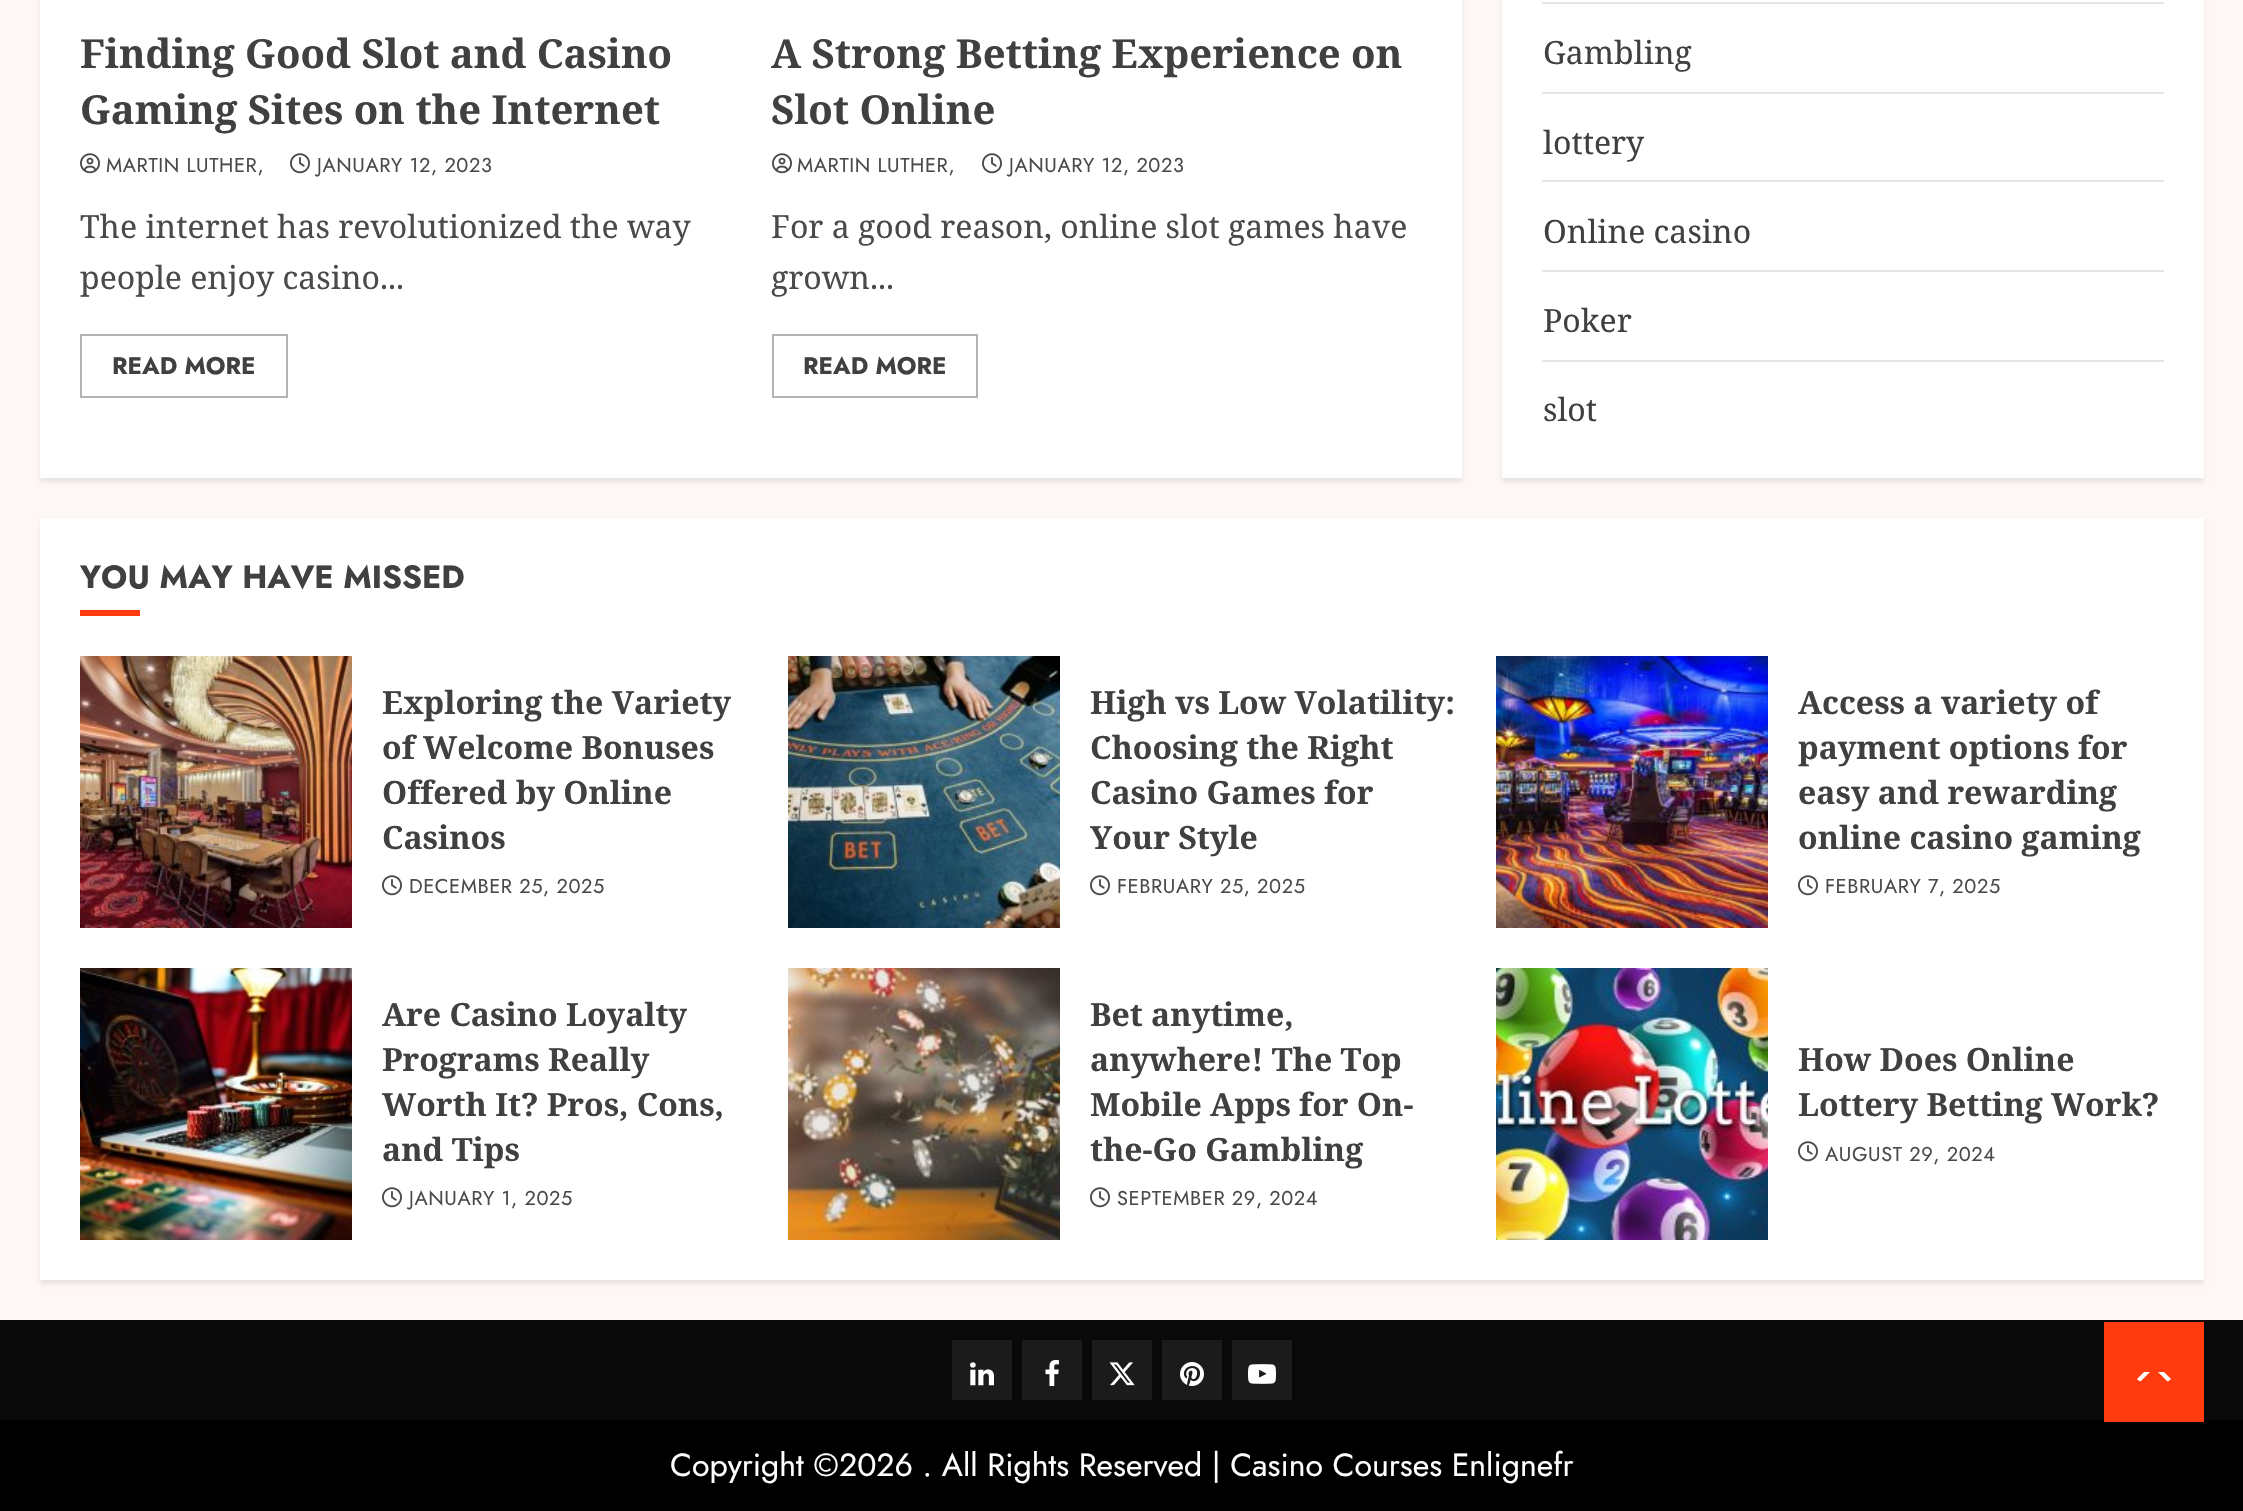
void draw(SkCanvas* canvas) {
    SkPaint paint;
    paint.setAntiAlias(true);
    auto face = [&](const char* family, int weight, float size, bool italic = false) {
        SkFontStyle style(weight, SkFontStyle::kNormal_Width,
            italic ? SkFontStyle::kItalic_Slant : SkFontStyle::kUpright_Slant);
        SkFont result(fontMgr->matchFamilyStyle(family, style), size);
        result.setSubpixel(true);
        return result;
    };
    auto write = [&](const char* s, float x, float y, const SkFont& font, SkColor color) {
        SkPaint ink(SkColor4f::FromColor(color));
        ink.setAntiAlias(true);
        canvas->drawString(s, x, y, font, ink);
    };
    auto writeSpaced = [&](const char* s, float x, float y, const SkFont& font, const SkPaint& ink, float letter, float word) {
        std::vector<SkGlyphID> glyphs(font.countText(s, strlen(s), SkTextEncoding::kUTF8));
        std::vector<float> xs(glyphs.size());
        font.textToGlyphs(s, strlen(s), SkTextEncoding::kUTF8, glyphs);
        font.getXPos(glyphs, xs, x);
        float extra = 0;
        for (size_t i = 0; i < glyphs.size(); i++) {
            xs[i] += extra;
            extra += letter + word * (glyphs[i] == font.unicharToGlyph(' '));
        }
        canvas->drawTextBlob(SkTextBlob::MakeFromPosHGlyphs(glyphs, xs, y, font), 0, 0, ink);
    };
    auto block = [&](float x, float y, float w, float h, SkColor color) {
        SkPaint ink(SkColor4f::FromColor(color));
        ink.setAntiAlias(true);
        canvas->drawRect(SkRect::MakeXYWH(x, y, w, h), ink);
    };
    auto paste = [&](const char* path, float x, float y, float w, float h) {
        auto image = SkImages::DeferredFromEncodedData(SkData::MakeFromFileName(path));
        canvas->drawImageRect(image, SkRect::MakeXYWH(x, y, w, h), SkSamplingOptions());
    };
    canvas->clear(SkColorSetRGB(253, 247, 246));
    paint.setColor(SkColorSetARGB(20, 0, 0, 0));
    paint.setMaskFilter(SkMaskFilter::MakeBlur(kNormal_SkBlurStyle, 2));
    canvas->drawRect(SkRect::MakeXYWH(40, -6, 1422, 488), paint);
    paint.setMaskFilter(nullptr);
    block(40, 0, 1422, 478, SK_ColorWHITE);
    auto kFont1 = face("Noto Serif", 700, 40);
    write("Finding Good Slot and Casino", 80, 68, kFont1, SkColorSetRGB(64, 64, 64));
    write("Gaming Sites on the Internet", 80, 124, kFont1, SkColorSetRGB(64, 64, 64));
    paste("pic1.png", 80, 153, 20, 21);
    auto kFont2 = face("Jost", 400, 20);
    paint.setColor(SkColorSetRGB(74, 74, 74));
    writeSpaced("MARTIN LUTHER,", 106, 172, kFont2, paint, 0.6f, 0);
    paste("pic2.png", 290, 153, 20, 21);
    writeSpaced("JANUARY 12, 2023", 317, 172, kFont2, paint, 0.6f, 0);
    auto kFont3 = face("Noto Serif", 400, 32);
    write("The internet has revolutionized the way", 80, 238, kFont3, SkColorSetRGB(74, 74, 74));
    write("people enjoy casino...", 80, 289, kFont3, SkColorSetRGB(74, 74, 74));
    paint.setStyle(SkPaint::kStroke_Style);
    paint.setStrokeWidth(2);
    paint.setColor(SkColorSetRGB(179, 179, 179));
    canvas->drawRect(SkRect::MakeXYWH(81, 335, 206, 62), paint);
    auto kFont4 = face("Jost", 700, 24);
    write("READ MORE", 112, 374, kFont4, SkColorSetRGB(64, 64, 64));
    write("A Strong Betting Experience on", 771, 68, kFont1, SkColorSetRGB(64, 64, 64));
    write("Slot Online", 771, 124, kFont1, SkColorSetRGB(64, 64, 64));
    paste("pic1.png", 772, 153, 20, 21);
    paint.setStyle(SkPaint::kFill_Style);
    paint.setColor(SkColorSetRGB(74, 74, 74));
    writeSpaced("MARTIN LUTHER,", 797, 172, kFont2, paint, 0.6f, 0);
    paste("pic2.png", 982, 153, 20, 21);
    writeSpaced("JANUARY 12, 2023", 1009, 172, kFont2, paint, 0.6f, 0);
    write("For a good reason, online slot games have", 771, 238, kFont3, SkColorSetRGB(74, 74, 74));
    write("grown...", 771, 289, kFont3, SkColorSetRGB(74, 74, 74));
    paint.setStyle(SkPaint::kStroke_Style);
    paint.setColor(SkColorSetRGB(179, 179, 179));
    canvas->drawRect(SkRect::MakeXYWH(773, 335, 204, 62), paint);
    write("READ MORE", 803, 374, kFont4, SkColorSetRGB(64, 64, 64));
    paint.setStyle(SkPaint::kFill_Style);
    paint.setColor(SkColorSetARGB(20, 0, 0, 0));
    paint.setMaskFilter(SkMaskFilter::MakeBlur(kNormal_SkBlurStyle, 2));
    canvas->drawRect(SkRect::MakeXYWH(1502, -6, 702, 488), paint);
    paint.setMaskFilter(nullptr);
    block(1502, 0, 702, 478, SK_ColorWHITE);
    block(1542, 2, 622, 2, SkColorSetRGB(230, 230, 230));
    block(1542, 92, 622, 2, SkColorSetRGB(230, 230, 230));
    write("Gambling", 1543, 64, kFont3, SkColorSetRGB(64, 64, 64));
    block(1542, 180, 622, 2, SkColorSetRGB(230, 230, 230));
    write("lottery", 1543, 154, kFont3, SkColorSetRGB(64, 64, 64));
    block(1542, 270, 622, 2, SkColorSetRGB(230, 230, 230));
    write("Online casino", 1543, 243, kFont3, SkColorSetRGB(64, 64, 64));
    block(1542, 360, 622, 2, SkColorSetRGB(230, 230, 230));
    write("Poker", 1543, 332, kFont3, SkColorSetRGB(64, 64, 64));
    write("slot", 1543, 421, kFont3, SkColorSetRGB(64, 64, 64));
    paint.setMaskFilter(SkMaskFilter::MakeBlur(kNormal_SkBlurStyle, 2));
    canvas->drawRect(SkRect::MakeXYWH(40, 522, 2164, 762), paint);
    paint.setMaskFilter(nullptr);
    block(40, 518, 2164, 762, SK_ColorWHITE);
    auto kFont5 = face("Jost", 700, 32);
    write("YOU MAY HAVE MISSED", 80, 588, kFont5, SkColorSetRGB(64, 64, 64));
    block(80, 610, 60, 6, SkColorSetRGB(255, 60, 16));
    paste("pic3.png", 80, 656, 272, 272);
    auto kFont6 = face("Noto Serif", 700, 32);
    write("Exploring the Variety", 382, 714, kFont6, SkColorSetRGB(64, 64, 64));
    write("of Welcome Bonuses", 382, 759, kFont6, SkColorSetRGB(64, 64, 64));
    write("Offered by Online", 382, 804, kFont6, SkColorSetRGB(64, 64, 64));
    write("Casinos", 382, 849, kFont6, SkColorSetRGB(64, 64, 64));
    paste("pic2.png", 382, 875, 20, 21);
    paint.setColor(SkColorSetRGB(74, 74, 74));
    writeSpaced("DECEMBER 25, 2025", 409, 893, kFont2, paint, 0.6f, 0);
    paste("pic4.png", 788, 656, 272, 272);
    write("High vs Low Volatility:", 1090, 714, kFont6, SkColorSetRGB(64, 64, 64));
    write("Choosing the Right", 1090, 759, kFont6, SkColorSetRGB(64, 64, 64));
    write("Casino Games for", 1090, 804, kFont6, SkColorSetRGB(64, 64, 64));
    write("Your Style", 1090, 849, kFont6, SkColorSetRGB(64, 64, 64));
    paste("pic2.png", 1090, 875, 20, 21);
    writeSpaced("FEBRUARY 25, 2025", 1117, 893, kFont2, paint, 0.6f, 0);
    paste("pic5.png", 1496, 656, 272, 272);
    write("Access a variety of", 1798, 714, kFont6, SkColorSetRGB(64, 64, 64));
    write("payment options for", 1798, 759, kFont6, SkColorSetRGB(64, 64, 64));
    write("easy and rewarding", 1798, 804, kFont6, SkColorSetRGB(64, 64, 64));
    write("online casino gaming", 1798, 849, kFont6, SkColorSetRGB(64, 64, 64));
    paste("pic2.png", 1798, 875, 20, 21);
    writeSpaced("FEBRUARY 7, 2025", 1825, 893, kFont2, paint, 0.6f, 0);
    paste("pic6.png", 80, 968, 272, 272);
    write("Are Casino Loyalty", 382, 1026, kFont6, SkColorSetRGB(64, 64, 64));
    write("Programs Really", 382, 1071, kFont6, SkColorSetRGB(64, 64, 64));
    write("Worth It? Pros, Cons,", 382, 1116, kFont6, SkColorSetRGB(64, 64, 64));
    write("and Tips", 382, 1161, kFont6, SkColorSetRGB(64, 64, 64));
    paste("pic2.png", 382, 1187, 20, 21);
    writeSpaced("JANUARY 1, 2025", 409, 1205, kFont2, paint, 0.6f, 0);
    paste("pic7.png", 788, 968, 272, 272);
    write("Bet anytime,", 1090, 1026, kFont6, SkColorSetRGB(64, 64, 64));
    write("anywhere! The Top", 1090, 1071, kFont6, SkColorSetRGB(64, 64, 64));
    write("Mobile Apps for On-", 1090, 1116, kFont6, SkColorSetRGB(64, 64, 64));
    write("the-Go Gambling", 1090, 1161, kFont6, SkColorSetRGB(64, 64, 64));
    paste("pic2.png", 1090, 1187, 20, 21);
    writeSpaced("SEPTEMBER 29, 2024", 1117, 1205, kFont2, paint, 0.6f, 0);
    paste("pic8.png", 1496, 968, 272, 272);
    write("How Does Online", 1798, 1071, kFont6, SkColorSetRGB(64, 64, 64));
    write("Lottery Betting Work?", 1798, 1116, kFont6, SkColorSetRGB(64, 64, 64));
    paste("pic2.png", 1798, 1141, 20, 21);
    writeSpaced("AUGUST 29, 2024", 1825, 1161, kFont2, paint, 0.6f, 0);
    block(0, 1320, 2243, 100, SkColorSetRGB(9, 9, 9));
    block(952, 1340, 60, 60, SkColorSetRGB(27, 27, 27));
    paste("pic9.png", 970, 1362, 24, 24);
    block(1022, 1340, 60, 60, SkColorSetRGB(27, 27, 27));
    paste("pic10.png", 1045, 1360, 14, 26);
    block(1092, 1340, 60, 60, SkColorSetRGB(27, 27, 27));
    paste("pic11.png", 1109, 1362, 26, 24);
    block(1162, 1340, 60, 60, SkColorSetRGB(27, 27, 27));
    paste("pic12.png", 1180, 1362, 24, 24);
    block(1232, 1340, 60, 60, SkColorSetRGB(27, 27, 27));
    paste("pic13.png", 1248, 1364, 28, 20);
    block(0, 1420, 2243, 91, SK_ColorBLACK);
    auto kFont7 = face("Jost", 400, 32);
    write("Copyright ©2026 . All Rights Reserved | Casino Courses Enlignefr", 670, 1476, kFont7, SK_ColorWHITE);
    block(2104, 1322, 100, 100, SkColorSetRGB(255, 60, 16));
    paint.setColor(SK_ColorWHITE);
    canvas->drawPath(SkPathBuilder().moveTo(2144, 1382).lineTo(2164, 1382).cubicTo(2167, 1382, 2169.5f, 1381, 2171, 1379).lineTo(2164, 1372).lineTo(2144, 1372).lineTo(2137, 1379).cubicTo(2138.5f, 1381, 2141, 1382, 2144, 1382).close().detach(), paint);
    paint.setColor(SkColorSetRGB(255, 60, 16));
    canvas->drawPath(SkPathBuilder().moveTo(2174, 1388).lineTo(2134, 1388).lineTo(2154, 1368).close().detach(), paint);
}
